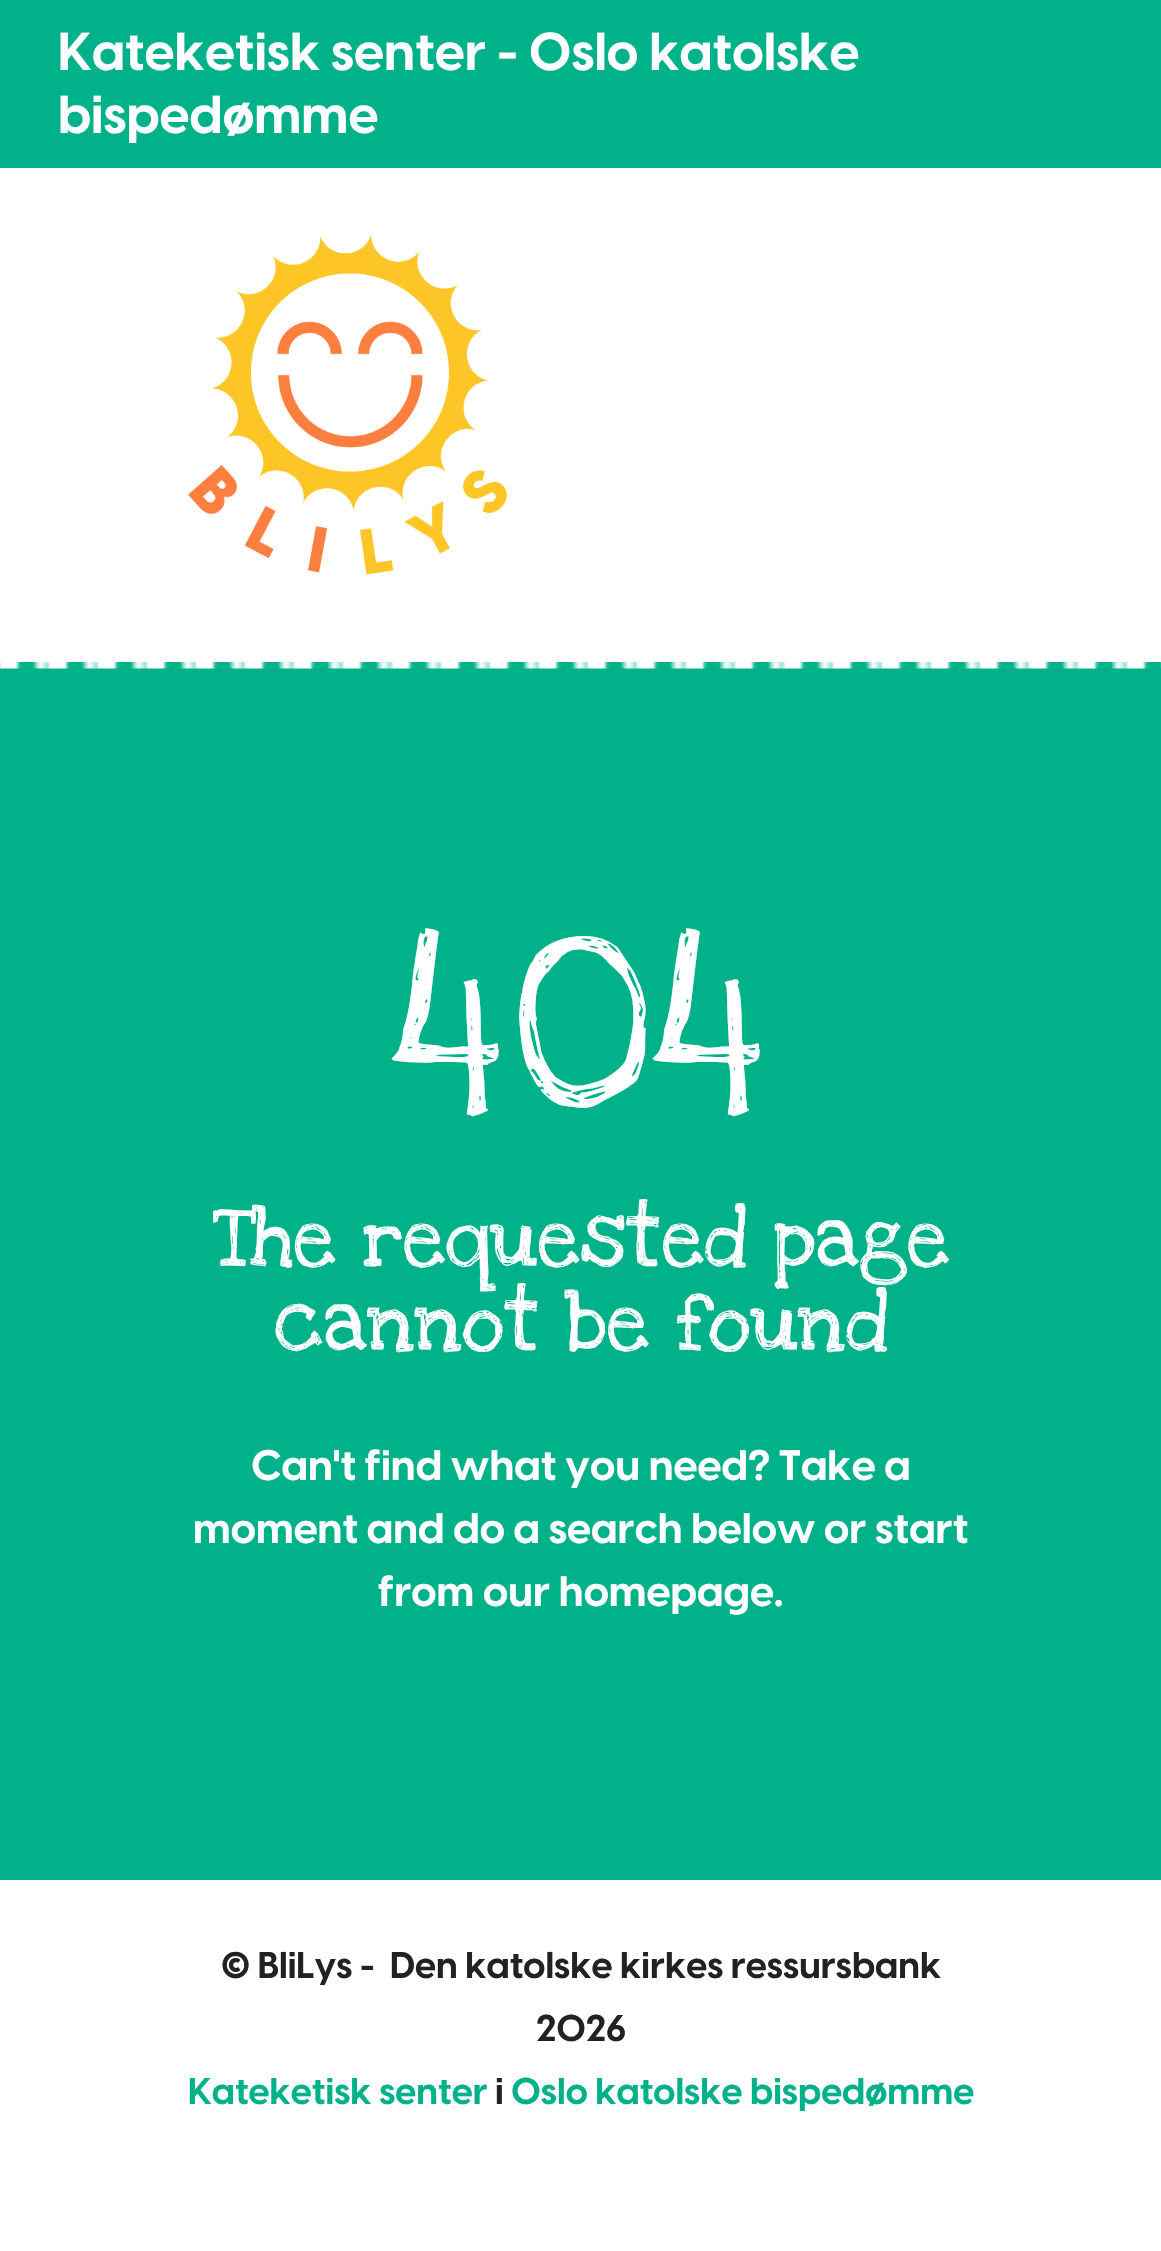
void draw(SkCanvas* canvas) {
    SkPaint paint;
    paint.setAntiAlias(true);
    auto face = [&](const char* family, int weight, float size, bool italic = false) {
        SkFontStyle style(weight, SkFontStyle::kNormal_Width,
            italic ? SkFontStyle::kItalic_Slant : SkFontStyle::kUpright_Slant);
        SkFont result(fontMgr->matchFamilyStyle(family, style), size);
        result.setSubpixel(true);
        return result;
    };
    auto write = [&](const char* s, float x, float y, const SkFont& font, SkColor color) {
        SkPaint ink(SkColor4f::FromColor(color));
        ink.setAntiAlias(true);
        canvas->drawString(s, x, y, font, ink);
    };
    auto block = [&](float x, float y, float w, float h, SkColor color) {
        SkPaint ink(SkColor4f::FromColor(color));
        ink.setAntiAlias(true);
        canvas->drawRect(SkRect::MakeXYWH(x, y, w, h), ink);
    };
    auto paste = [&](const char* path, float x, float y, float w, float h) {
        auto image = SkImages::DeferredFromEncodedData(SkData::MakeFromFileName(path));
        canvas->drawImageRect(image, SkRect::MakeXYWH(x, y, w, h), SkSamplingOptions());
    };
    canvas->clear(SK_ColorWHITE);
    block(0, 0, 1161, 168, SkColorSetRGB(0, 177, 137));
    auto kFont1 = face("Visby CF", 700, 52.5f);
    write("Kateketisk senter - Oslo katolske", 58, 70, kFont1, SK_ColorWHITE);
    write("bispedømme", 58, 133, kFont1, SK_ColorWHITE);
    paste("pic1.png", 188, 235, 319, 340);
    block(0, 662, 1161, 1218, SkColorSetRGB(0, 177, 137));
    paste("pic2.png", 0, 662, 1161, 7);
    auto kFont2 = face("Love Ya Like A Sister", 400, 252);
    write("404", 391, 1104, kFont2, SK_ColorWHITE);
    auto kFont3 = face("Love Ya Like A Sister", 400, 84);
    write("The requested page", 213, 1265, kFont3, SK_ColorWHITE);
    write("cannot be found", 274, 1349, kFont3, SK_ColorWHITE);
    auto kFont4 = face("Visby CF", 700, 42);
    write("Can't find what you need? Take a", 251, 1480, kFont4, SK_ColorWHITE);
    write("moment and do a search below or start", 193, 1543, kFont4, SK_ColorWHITE);
    write("from our homepage.", 378, 1606, kFont4, SK_ColorWHITE);
    auto kFont5 = face("Visby CF", 700, 36.75f);
    write("© BliLys -  Den katolske kirkes ressursbank", 221, 1978, kFont5, SkColorSetRGB(34, 34, 34));
    write("2026", 536, 2041, kFont5, SkColorSetRGB(34, 34, 34));
    write("Kateketisk senter", 188, 2104, kFont5, SkColorSetRGB(0, 177, 137));
    write("i", 495, 2104, kFont5, SkColorSetRGB(34, 34, 34));
    write("Oslo katolske bispedømme", 511, 2104, kFont5, SkColorSetRGB(0, 177, 137));
}
